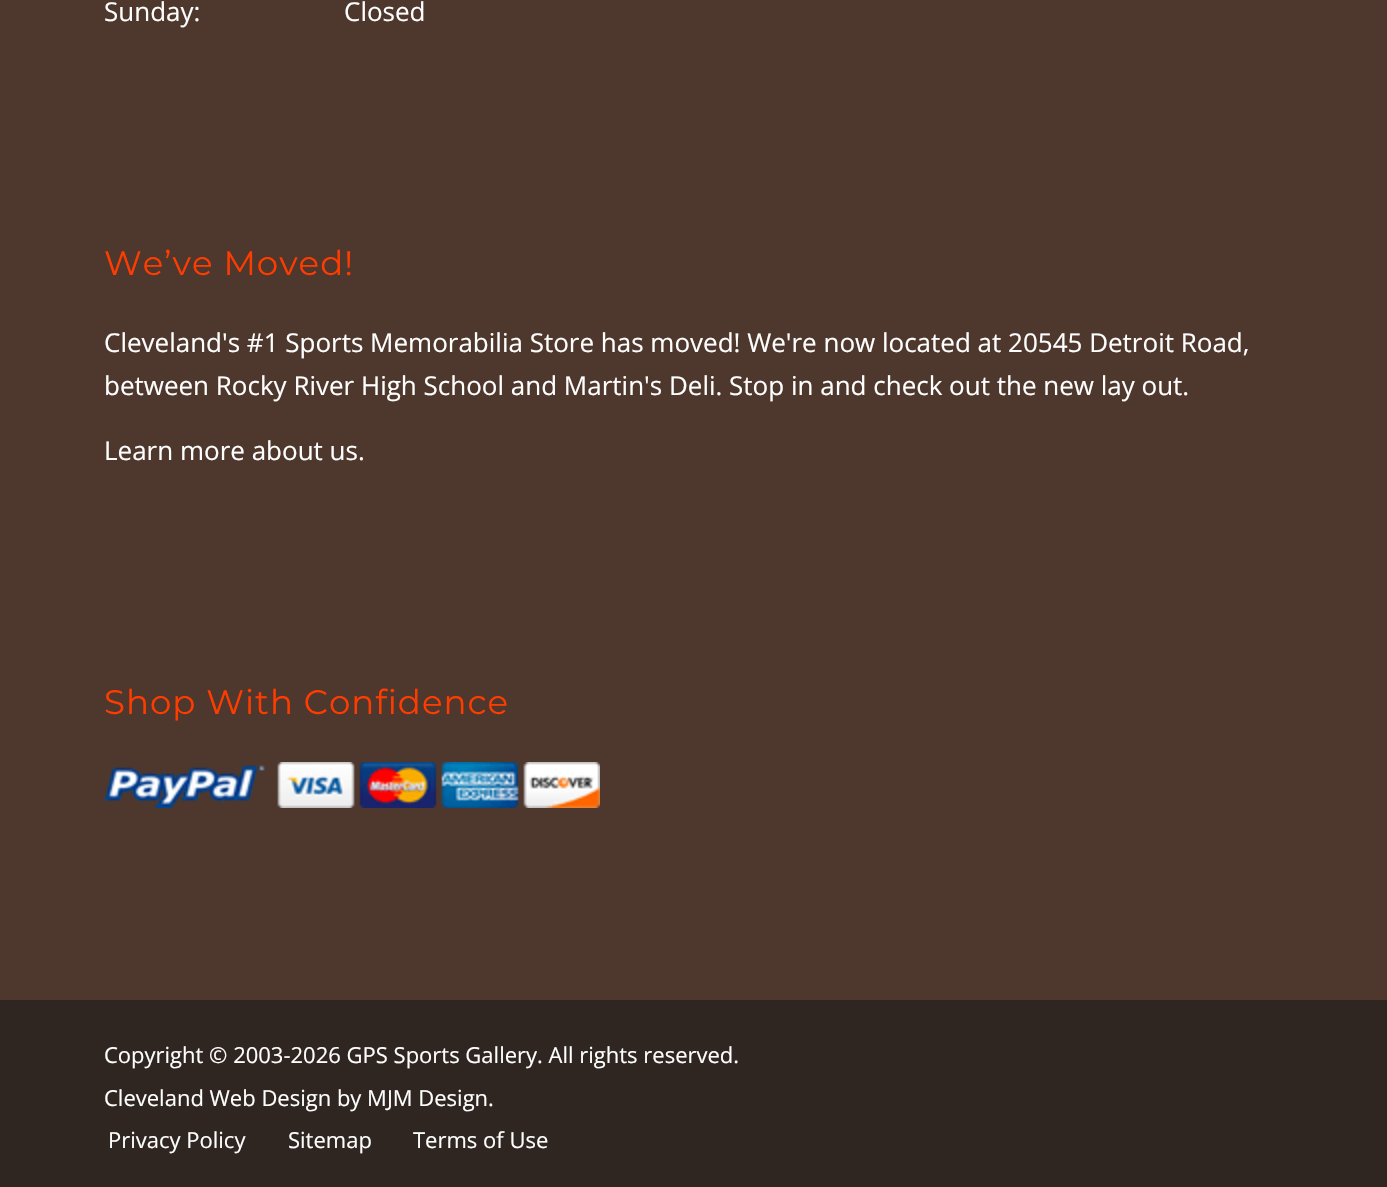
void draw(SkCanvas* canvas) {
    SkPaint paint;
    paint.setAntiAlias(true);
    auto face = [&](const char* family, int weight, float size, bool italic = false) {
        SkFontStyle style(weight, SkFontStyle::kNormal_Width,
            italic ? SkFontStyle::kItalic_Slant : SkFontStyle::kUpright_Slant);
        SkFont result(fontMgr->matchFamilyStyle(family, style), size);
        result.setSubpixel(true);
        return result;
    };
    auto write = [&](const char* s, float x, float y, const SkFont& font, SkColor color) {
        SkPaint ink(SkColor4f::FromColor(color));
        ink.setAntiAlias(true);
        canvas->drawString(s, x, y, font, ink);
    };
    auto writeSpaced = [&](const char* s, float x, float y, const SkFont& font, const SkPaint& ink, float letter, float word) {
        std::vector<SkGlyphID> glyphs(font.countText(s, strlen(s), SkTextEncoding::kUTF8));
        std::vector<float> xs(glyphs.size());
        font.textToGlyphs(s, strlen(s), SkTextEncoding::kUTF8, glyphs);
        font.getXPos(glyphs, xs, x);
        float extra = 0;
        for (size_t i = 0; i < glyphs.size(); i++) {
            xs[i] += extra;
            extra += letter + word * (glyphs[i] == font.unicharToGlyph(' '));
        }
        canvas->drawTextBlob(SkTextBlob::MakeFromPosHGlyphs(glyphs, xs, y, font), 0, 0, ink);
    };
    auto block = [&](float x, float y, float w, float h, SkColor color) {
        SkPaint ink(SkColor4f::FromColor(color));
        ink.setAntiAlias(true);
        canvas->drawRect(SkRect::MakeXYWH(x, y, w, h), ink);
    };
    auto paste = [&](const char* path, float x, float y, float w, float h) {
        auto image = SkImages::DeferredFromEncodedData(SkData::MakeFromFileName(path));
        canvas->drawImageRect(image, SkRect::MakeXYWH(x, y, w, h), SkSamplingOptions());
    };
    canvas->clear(SkColorSetRGB(78, 55, 44));
    auto kFont1 = face("Open Sans", 400, 26);
    write("Sunday:", 104, 21, kFont1, SK_ColorWHITE);
    write("Closed", 344, 21, kFont1, SK_ColorWHITE);
    auto kFont2 = face("Montserrat", 100, 34);
    paint.setColor(SkColorSetRGB(255, 60, 0));
    writeSpaced("We’ve Moved!", 104, 275, kFont2, paint, 1, 0);
    write("Cleveland's #1 Sports Memorabilia Store has moved! We're now located at 20545 Detroit Road,", 104, 352, kFont1, SK_ColorWHITE);
    write("between Rocky River High School and Martin's Deli. Stop in and check out the new lay out.", 104, 395, kFont1, SK_ColorWHITE);
    write("Learn more about us.", 104, 460, kFont1, SK_ColorWHITE);
    writeSpaced("Shop With Confidence", 104, 714, kFont2, paint, 1, 0);
    paste("pic1.png", 104, 762, 496, 46);
    block(0, 1000, 1387, 187, SkColorSetRGB(47, 38, 33));
    auto kFont3 = face("Open Sans", 400, 22);
    write("Copyright © 2003-2026 GPS Sports Gallery. All rights reserved.", 104, 1063, kFont3, SK_ColorWHITE);
    write("Cleveland Web Design by MJM Design.", 104, 1106, kFont3, SK_ColorWHITE);
    write("Privacy Policy", 108, 1148, kFont3, SK_ColorWHITE);
    write("Sitemap", 288, 1148, kFont3, SK_ColorWHITE);
    write("Terms of Use", 413, 1148, kFont3, SK_ColorWHITE);
}
